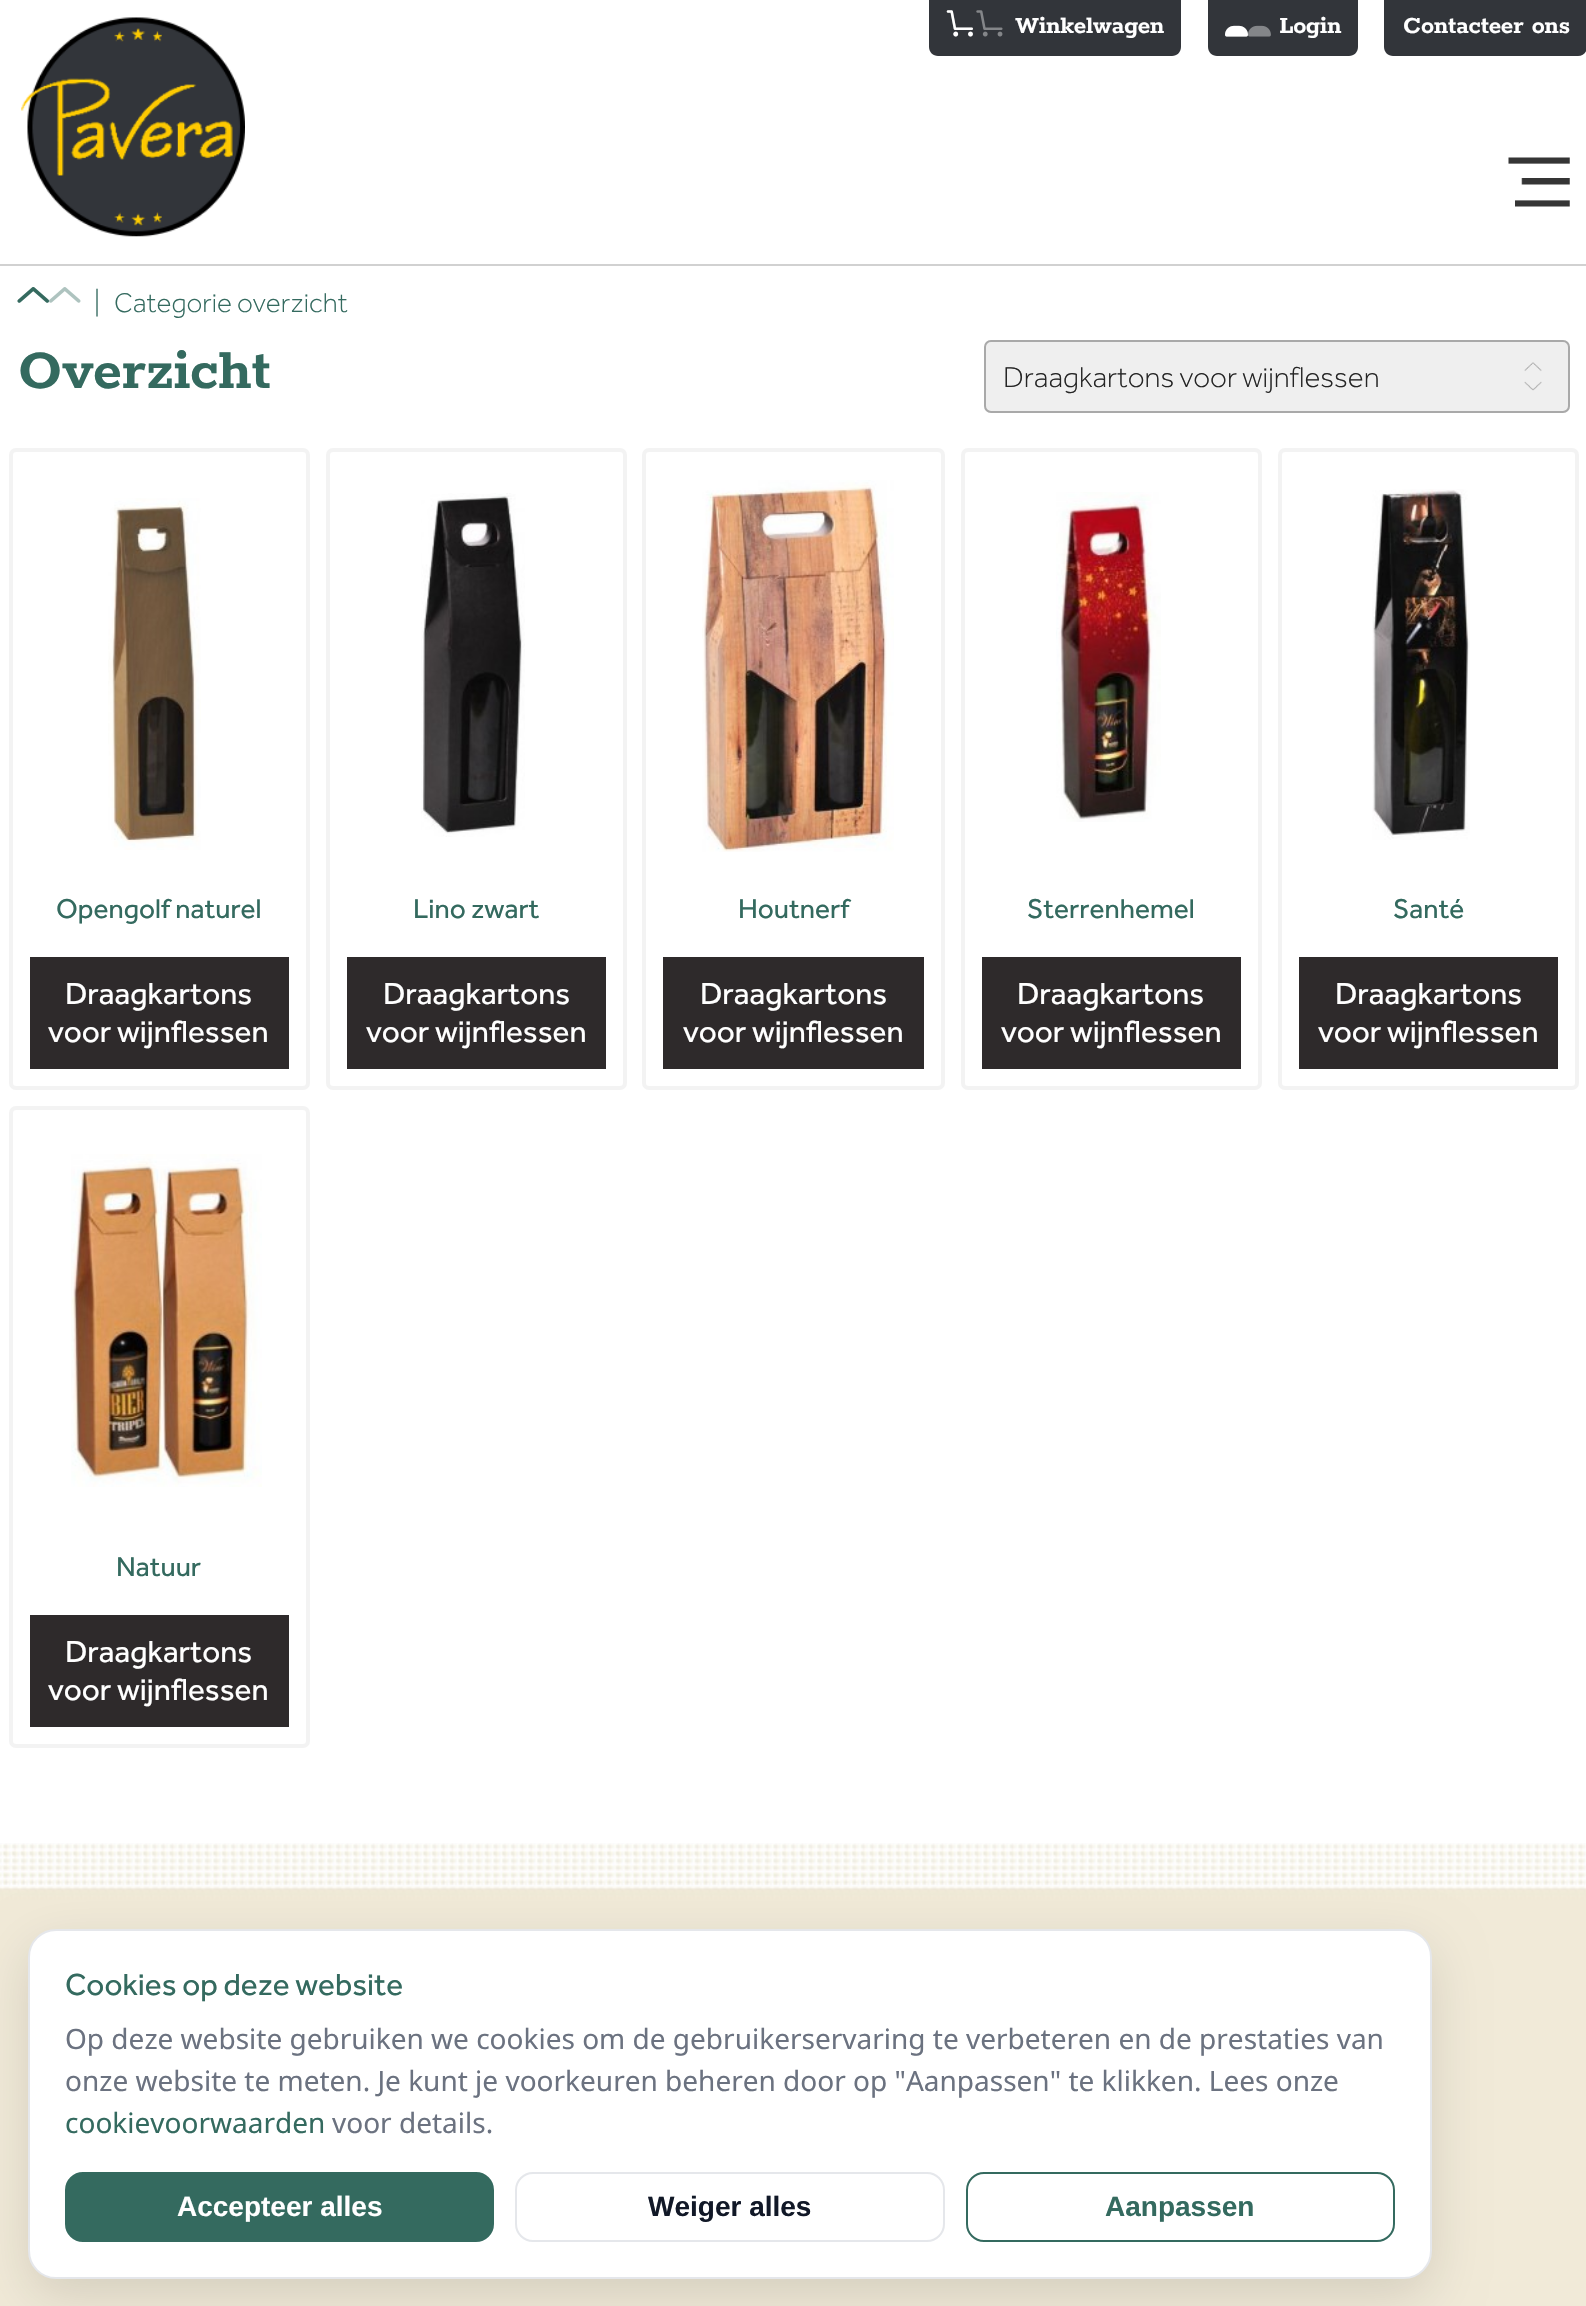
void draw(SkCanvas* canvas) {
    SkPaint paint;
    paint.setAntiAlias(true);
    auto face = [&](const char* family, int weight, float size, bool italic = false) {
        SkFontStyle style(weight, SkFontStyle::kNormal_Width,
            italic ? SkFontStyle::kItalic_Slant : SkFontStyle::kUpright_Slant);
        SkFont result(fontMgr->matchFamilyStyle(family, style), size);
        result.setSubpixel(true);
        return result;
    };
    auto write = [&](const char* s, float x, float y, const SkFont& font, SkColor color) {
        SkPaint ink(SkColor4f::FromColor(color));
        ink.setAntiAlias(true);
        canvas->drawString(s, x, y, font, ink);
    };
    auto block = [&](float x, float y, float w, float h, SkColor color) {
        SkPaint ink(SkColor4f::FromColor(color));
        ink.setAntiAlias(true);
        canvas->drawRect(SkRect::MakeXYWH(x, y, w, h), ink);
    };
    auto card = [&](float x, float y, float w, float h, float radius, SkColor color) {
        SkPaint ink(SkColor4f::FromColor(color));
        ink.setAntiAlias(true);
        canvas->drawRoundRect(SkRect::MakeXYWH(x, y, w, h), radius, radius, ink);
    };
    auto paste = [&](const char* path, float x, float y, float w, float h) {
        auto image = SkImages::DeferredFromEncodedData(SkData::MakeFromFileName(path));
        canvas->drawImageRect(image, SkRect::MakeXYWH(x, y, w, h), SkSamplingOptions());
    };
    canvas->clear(SK_ColorWHITE);
    block(0, 264, 1586, 2, SkColorSetRGB(209, 209, 209));
    paste("pic1.png", 21, 17, 224, 220);
    paint.setColor(SkColorSetRGB(50, 53, 58));
    canvas->drawPath(SkPathBuilder().moveTo(929, 0).lineTo(1181, 0).lineTo(1181, 47).cubicTo(1181, 52, 1177, 56, 1172, 56).lineTo(938, 56).cubicTo(933, 56, 929, 52, 929, 47).close().detach(), paint);
    paste("pic2.png", 946, 10, 27, 27);
    paste("pic3.png", 946, 10, 57, 27);
    auto kFont1 = face("Rokkitt", 700, 26.25f);
    write("Winkelwagen", 1015, 33, kFont1, SK_ColorWHITE);
    canvas->drawPath(SkPathBuilder().moveTo(1208, 0).lineTo(1358, 0).lineTo(1358, 47).cubicTo(1358, 52, 1354, 56, 1349, 56).lineTo(1217, 56).cubicTo(1212, 56, 1208, 52, 1208, 47).close().detach(), paint);
    paste("pic4.png", 1225, 25, 23, 12);
    paste("pic5.png", 1225, 25, 46, 12);
    write("Login", 1279, 33, kFont1, SK_ColorWHITE);
    canvas->drawPath(SkPathBuilder().moveTo(1384, 0).lineTo(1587, 0).lineTo(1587, 47).cubicTo(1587, 52, 1583, 56, 1578, 56).lineTo(1393, 56).cubicTo(1388, 56, 1384, 52, 1384, 47).close().detach(), paint);
    write("Contacteer ons", 1403, 33, kFont1, SK_ColorWHITE);
    paste("pic6.png", 1508, 157, 62, 50);
    paste("pic7.png", 17, 287, 32, 16);
    paste("pic8.png", 17, 287, 64, 16);
    auto kFont2 = face("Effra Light", 300, 28);
    write("|", 94, 312, kFont2, SkColorSetRGB(52, 106, 95));
    write("Categorie overzicht", 114, 312, kFont2, SkColorSetRGB(52, 106, 95));
    auto kFont3 = face("Rokkitt", 700, 61.25f);
    write("Overzicht", 18, 388, kFont3, SkColorSetRGB(52, 106, 95));
    card(984, 340, 586, 73, 7, SkColorSetRGB(239, 239, 239));
    paste("pic9.png", 1524, 362, 18, 29);
    paint.setStyle(SkPaint::kStroke_Style);
    paint.setStrokeWidth(2);
    paint.setColor(SkColorSetRGB(169, 169, 169));
    canvas->drawRoundRect(SkRect::MakeXYWH(985, 341, 584, 71), 6, 6, paint);
    auto kFont4 = face("Effra Light", 300, 29.75f);
    write("Draagkartons voor wijnflessen", 1003, 387, kFont4, SkColorSetRGB(37, 37, 37));
    paint.setStrokeWidth(4);
    paint.setColor(SkColorSetRGB(243, 243, 243));
    canvas->drawRoundRect(SkRect::MakeXYWH(11, 450, 297, 638), 5, 5, paint);
    paste("pic10.png", 108, 498, 93, 352);
    auto kFont5 = face("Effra", 400, 28);
    write("Opengolf naturel", 56, 918, kFont5, SkColorSetRGB(52, 106, 95));
    block(30, 957, 259, 112, SkColorSetRGB(46, 42, 43));
    auto kFont6 = face("Effra", 400, 31.5f);
    write("Draagkartons", 65, 1004, kFont6, SK_ColorWHITE);
    write("voor wijnflessen", 48, 1042, kFont6, SK_ColorWHITE);
    canvas->drawRoundRect(SkRect::MakeXYWH(328, 450, 297, 638), 5, 5, paint);
    paste("pic11.png", 421, 493, 104, 344);
    write("Lino zwart", 413, 918, kFont5, SkColorSetRGB(52, 106, 95));
    block(347, 957, 259, 112, SkColorSetRGB(46, 42, 43));
    write("Draagkartons", 383, 1004, kFont6, SK_ColorWHITE);
    write("voor wijnflessen", 366, 1042, kFont6, SK_ColorWHITE);
    canvas->drawRoundRect(SkRect::MakeXYWH(644, 450, 299, 638), 5, 5, paint);
    paste("pic12.png", 702, 480, 192, 372);
    write("Houtnerf", 738, 918, kFont5, SkColorSetRGB(52, 106, 95));
    block(663, 957, 261, 112, SkColorSetRGB(46, 42, 43));
    write("Draagkartons", 700, 1004, kFont6, SK_ColorWHITE);
    write("voor wijnflessen", 683, 1042, kFont6, SK_ColorWHITE);
    canvas->drawRoundRect(SkRect::MakeXYWH(963, 450, 297, 638), 5, 5, paint);
    paste("pic13.png", 1056, 492, 105, 330);
    write("Sterrenhemel", 1027, 918, kFont5, SkColorSetRGB(52, 106, 95));
    block(982, 957, 259, 112, SkColorSetRGB(46, 42, 43));
    write("Draagkartons", 1017, 1004, kFont6, SK_ColorWHITE);
    write("voor wijnflessen", 1001, 1042, kFont6, SK_ColorWHITE);
    canvas->drawRoundRect(SkRect::MakeXYWH(1280, 450, 297, 638), 5, 5, paint);
    paste("pic14.png", 1372, 489, 98, 351);
    write("Santé", 1393, 918, kFont5, SkColorSetRGB(52, 106, 95));
    block(1299, 957, 259, 112, SkColorSetRGB(46, 42, 43));
    write("Draagkartons", 1335, 1004, kFont6, SK_ColorWHITE);
    write("voor wijnflessen", 1318, 1042, kFont6, SK_ColorWHITE);
    canvas->drawRoundRect(SkRect::MakeXYWH(11, 1108, 297, 638), 5, 5, paint);
    paste("pic15.png", 71, 1154, 191, 333);
    write("Natuur", 116, 1576, kFont5, SkColorSetRGB(52, 106, 95));
    block(30, 1615, 259, 112, SkColorSetRGB(46, 42, 43));
    write("Draagkartons", 65, 1662, kFont6, SK_ColorWHITE);
    write("voor wijnflessen", 48, 1700, kFont6, SK_ColorWHITE);
    paste("pic16.png", 0, 1843, 1586, 463);
    paint.setStyle(SkPaint::kFill_Style);
    paint.setColor(SkColorSetARGB(31, 0, 0, 0));
    paint.setMaskFilter(SkMaskFilter::MakeBlur(kNormal_SkBlurStyle, 26));
    canvas->drawRoundRect(SkRect::MakeXYWH(28, 1946, 1404, 350), 28, 28, paint);
    paint.setMaskFilter(nullptr);
    paint.setColor(SK_ColorWHITE);
    canvas->drawRoundRect(SkRect::MakeXYWH(29, 1930, 1402, 348), 27, 27, paint);
    paint.setStyle(SkPaint::kStroke_Style);
    paint.setStrokeWidth(2);
    paint.setColor(SkColorSetRGB(229, 231, 235));
    canvas->drawRoundRect(SkRect::MakeXYWH(29, 1930, 1402, 348), 27, 27, paint);
    write("Cookies op deze website", 65, 1995, kFont6, SkColorSetRGB(52, 106, 95));
    auto kFont7 = face("Noto Sans", 400, 28);
    write("Op deze website gebruiken we cookies om de gebruikerservaring te verbeteren en de prestaties van", 65, 2049, kFont7, SkColorSetRGB(107, 114, 128));
    write("onze website te meten. Je kunt je voorkeuren beheren door op \"Aanpassen\" te klikken. Lees onze", 65, 2091, kFont7, SkColorSetRGB(107, 114, 128));
    write("cookievoorwaarden", 65, 2133, kFont7, SkColorSetRGB(52, 106, 95));
    write("voor details.", 332, 2133, kFont7, SkColorSetRGB(107, 114, 128));
    paint.setStyle(SkPaint::kFill_Style);
    paint.setColor(SkColorSetRGB(52, 106, 95));
    canvas->drawRoundRect(SkRect::MakeXYWH(66, 2173, 427, 68), 17, 17, paint);
    paint.setStyle(SkPaint::kStroke_Style);
    canvas->drawRoundRect(SkRect::MakeXYWH(66, 2173, 427, 68), 17, 17, paint);
    auto kFont8 = face("Liberation Sans", 700, 28);
    write("Accepteer alles", 177, 2216, kFont8, SK_ColorWHITE);
    paint.setColor(SkColorSetRGB(229, 231, 235));
    canvas->drawRoundRect(SkRect::MakeXYWH(516, 2173, 428, 68), 17, 17, paint);
    write("Weiger alles", 648, 2216, kFont8, SkColorSetRGB(17, 24, 39));
    paint.setColor(SkColorSetRGB(52, 106, 95));
    canvas->drawRoundRect(SkRect::MakeXYWH(967, 2173, 427, 68), 17, 17, paint);
    write("Aanpassen", 1105, 2216, kFont8, SkColorSetRGB(52, 106, 95));
}
